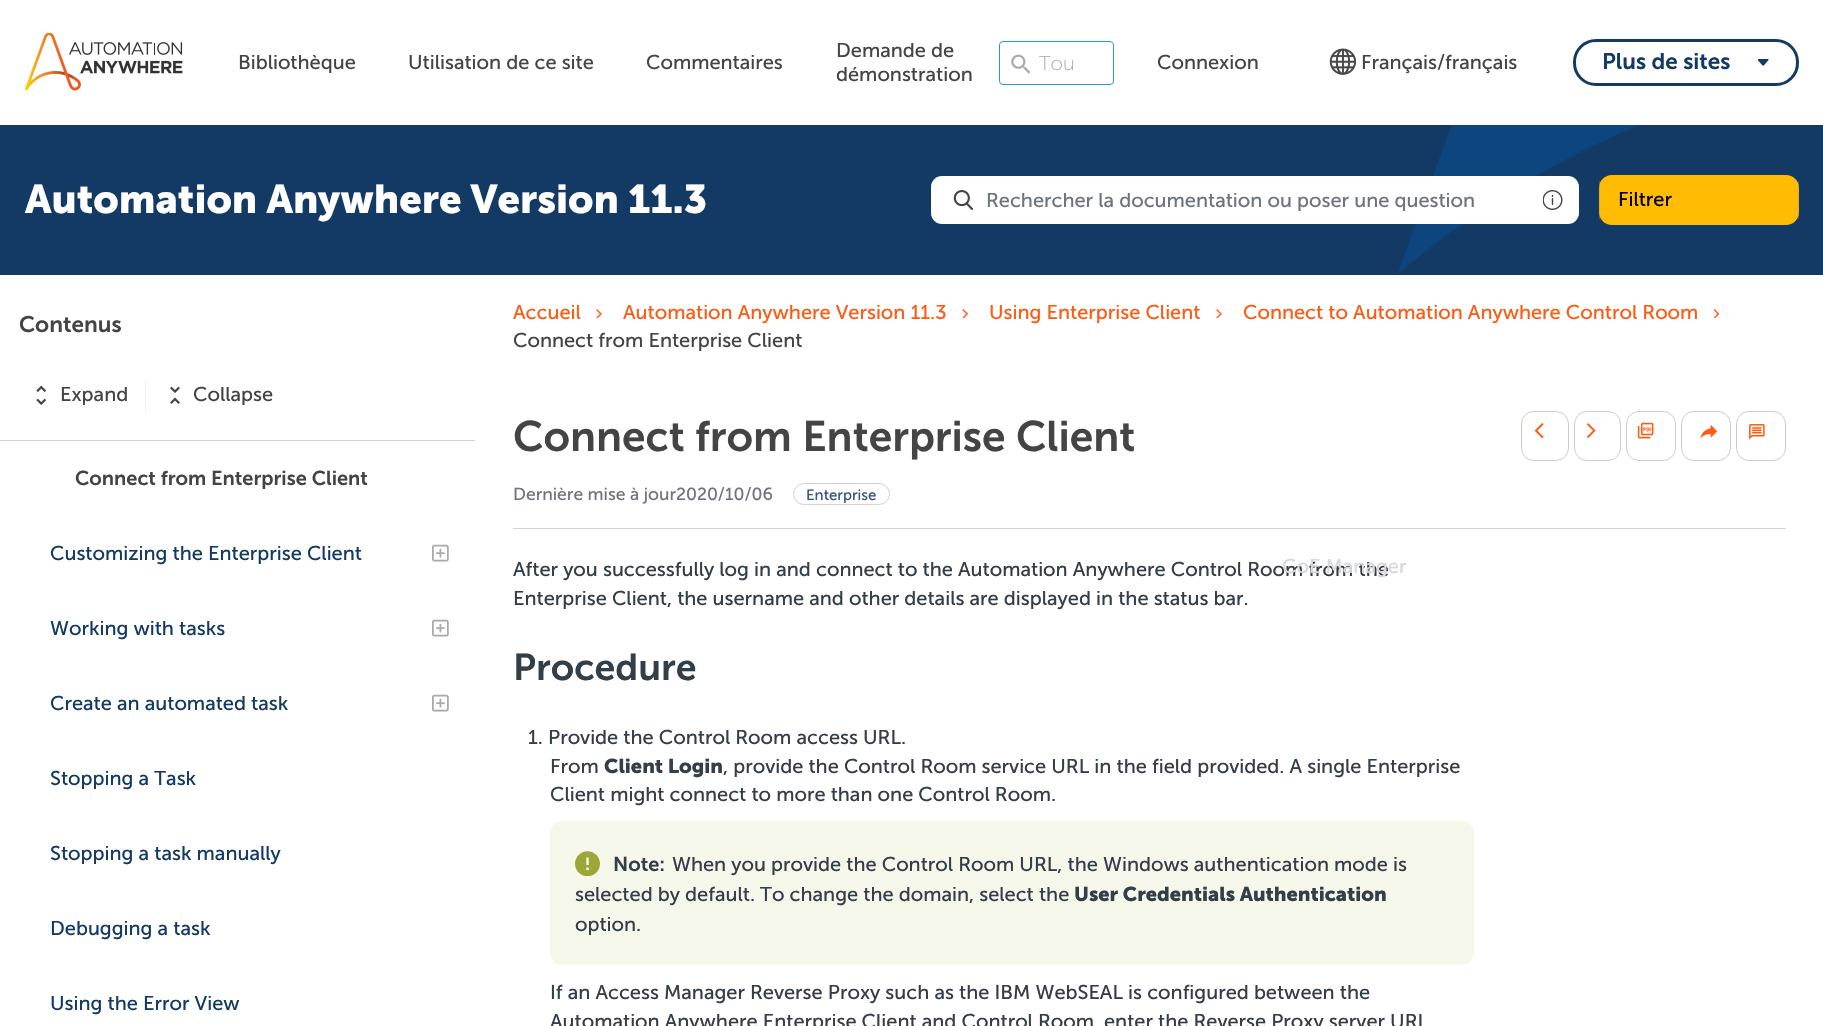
void draw(SkCanvas* canvas) {
    SkPaint paint;
    paint.setAntiAlias(true);
    auto face = [&](const char* family, int weight, float size, bool italic = false) {
        SkFontStyle style(weight, SkFontStyle::kNormal_Width,
            italic ? SkFontStyle::kItalic_Slant : SkFontStyle::kUpright_Slant);
        SkFont result(fontMgr->matchFamilyStyle(family, style), size);
        result.setSubpixel(true);
        return result;
    };
    auto write = [&](const char* s, float x, float y, const SkFont& font, SkColor color) {
        SkPaint ink(SkColor4f::FromColor(color));
        ink.setAntiAlias(true);
        canvas->drawString(s, x, y, font, ink);
    };
    auto block = [&](float x, float y, float w, float h, SkColor color) {
        SkPaint ink(SkColor4f::FromColor(color));
        ink.setAntiAlias(true);
        canvas->drawRect(SkRect::MakeXYWH(x, y, w, h), ink);
    };
    auto card = [&](float x, float y, float w, float h, float radius, SkColor color) {
        SkPaint ink(SkColor4f::FromColor(color));
        ink.setAntiAlias(true);
        canvas->drawRoundRect(SkRect::MakeXYWH(x, y, w, h), radius, radius, ink);
    };
    auto paste = [&](const char* path, float x, float y, float w, float h) {
        auto image = SkImages::DeferredFromEncodedData(SkData::MakeFromFileName(path));
        canvas->drawImageRect(image, SkRect::MakeXYWH(x, y, w, h), SkSamplingOptions());
    };
    canvas->clear(SK_ColorWHITE);
    paste("pic1.png", 25, 33, 158, 58);
    auto kFont1 = face("Museo Sans", 400, 20);
    write("Bibliothèque", 238, 69, kFont1, SkColorSetRGB(68, 68, 68));
    write("Utilisation de ce site", 408, 69, kFont1, SkColorSetRGB(68, 68, 68));
    write("Commentaires", 646, 69, kFont1, SkColorSetRGB(68, 68, 68));
    write("Demande de", 836, 57, kFont1, SkColorSetRGB(68, 68, 68));
    write("démonstration", 836, 81, kFont1, SkColorSetRGB(68, 68, 68));
    paint.setStyle(SkPaint::kStroke_Style);
    paint.setStrokeWidth(1);
    paint.setColor(SkColorSetRGB(38, 155, 205));
    canvas->drawRoundRect(SkRect::MakeXYWH(999.5f, 41.5f, 114, 43), 3.5f, 3.5f, paint);
    paste("pic2.png", 1011, 54, 19, 20);
    auto kFont2 = face("Museo Sans", 200, 20);
    write("Tou", 1039, 70, kFont2, SkColorSetRGB(169, 169, 169));
    write("Connexion", 1157, 69, kFont1, SkColorSetRGB(68, 68, 68));
    paste("pic3.png", 1329, 48, 27, 27);
    write("Français/français", 1361, 69, kFont1, SkColorSetRGB(68, 68, 68));
    paint.setStrokeWidth(3);
    paint.setColor(SkColorSetRGB(19, 58, 101));
    canvas->drawRoundRect(SkRect::MakeXYWH(1574.5f, 40.5f, 223, 44), 21.5f, 21.5f, paint);
    auto kFont3 = face("Museo Sans", 600, 22.5f);
    write("Plus de sites", 1602, 69, kFont3, SkColorSetRGB(19, 58, 101));
    paste("pic4.png", 1758, 59, 11, 7);
    paste("pic5.png", 0, 125, 1823, 150);
    auto kFont4 = face("Museo Sans", 700, 40);
    write("Automation Anywhere Version 11.3", 25, 213, kFont4, SK_ColorWHITE);
    card(931, 176, 648, 48, 11, SK_ColorWHITE);
    paste("pic6.png", 953, 190, 20, 20);
    paste("pic7.png", 1543, 190, 20, 20);
    write("Rechercher la documentation ou poser une question", 986, 207, kFont1, SkColorSetRGB(108, 117, 125));
    card(1599, 175, 200, 50, 13, SkColorSetRGB(255, 188, 3));
    block(1798, 181, 1, 38, SkColorSetARGB(79, 150, 150, 150));
    block(1599, 181, 1, 38, SkColorSetARGB(79, 150, 150, 150));
    write("Filtrer", 1618, 206, kFont1, SK_ColorBLACK);
    write("After you successfully log in and connect to the Automation Anywhere Control Room from the", 513, 576, kFont1, SkColorSetRGB(50, 62, 72));
    write("CoE Manager", 1282, 573, kFont1, SkColorSetRGB(214, 216, 218));
    block(0, 440, 475, 1, SkColorSetRGB(206, 212, 218));
    write("Contenus", 19, 332, kFont3, SkColorSetRGB(68, 68, 68));
    paste("pic8.png", 36, 385, 11, 20);
    write("Expand", 60, 401, kFont1, SkColorSetRGB(68, 68, 68));
    block(145, 380, 1, 31, SkColorSetRGB(239, 240, 240));
    paste("pic9.png", 170, 386, 10, 18);
    write("Collapse", 193, 401, kFont1, SkColorSetRGB(68, 68, 68));
    auto kFont5 = face("Museo Sans", 600, 20);
    write("Connect from Enterprise Client", 75, 485, kFont5, SkColorSetRGB(68, 68, 68));
    write("Customizing the Enterprise Client", 50, 560, kFont1, SkColorSetRGB(19, 58, 101));
    paste("pic10.png", 432, 544, 17, 18);
    write("Working with tasks", 50, 635, kFont1, SkColorSetRGB(19, 58, 101));
    paste("pic10.png", 432, 619, 17, 18);
    write("Create an automated task", 50, 710, kFont1, SkColorSetRGB(19, 58, 101));
    paste("pic10.png", 432, 694, 17, 18);
    write("Stopping a Task", 50, 785, kFont1, SkColorSetRGB(19, 58, 101));
    write("Stopping a task manually", 50, 860, kFont1, SkColorSetRGB(19, 58, 101));
    write("Debugging a task", 50, 935, kFont1, SkColorSetRGB(19, 58, 101));
    write("Using the Error View", 50, 1010, kFont1, SkColorSetRGB(19, 58, 101));
    write("Accueil", 513, 319, kFont1, SkColorSetRGB(255, 90, 16));
    paste("pic11.png", 596, 309, 6, 9);
    write("Automation Anywhere Version 11.3", 623, 319, kFont1, SkColorSetRGB(255, 90, 16));
    paste("pic12.png", 962, 309, 6, 9);
    write("Using Enterprise Client", 989, 319, kFont1, SkColorSetRGB(255, 90, 16));
    paste("pic11.png", 1216, 309, 6, 9);
    write("Connect to Automation Anywhere Control Room", 1243, 319, kFont1, SkColorSetRGB(255, 90, 16));
    paste("pic13.png", 1713, 309, 7, 9);
    write("Connect from Enterprise Client", 513, 347, kFont1, SkColorSetRGB(68, 68, 68));
    block(513, 528, 1273, 1, SkColorSetRGB(206, 212, 218));
    auto kFont6 = face("Museo Sans", 600, 42.5f);
    write("Connect from Enterprise Client", 513, 451, kFont6, SkColorSetRGB(68, 68, 68));
    paint.setStrokeWidth(1);
    paint.setColor(SkColorSetRGB(204, 204, 204));
    canvas->drawRoundRect(SkRect::MakeXYWH(1521.5f, 411.5f, 47, 49), 12.5f, 12.5f, paint);
    paste("pic14.png", 1534, 423, 10, 16);
    canvas->drawRoundRect(SkRect::MakeXYWH(1574.5f, 411.5f, 46, 49), 12.5f, 12.5f, paint);
    paste("pic15.png", 1586, 423, 10, 15);
    canvas->drawRoundRect(SkRect::MakeXYWH(1626.5f, 411.5f, 49, 49), 12.5f, 12.5f, paint);
    paste("pic16.png", 1637, 422, 17, 17);
    canvas->drawRoundRect(SkRect::MakeXYWH(1681.5f, 411.5f, 49, 49), 12.5f, 12.5f, paint);
    paste("pic17.png", 1700, 424, 18, 15);
    canvas->drawRoundRect(SkRect::MakeXYWH(1736.5f, 411.5f, 49, 49), 12.5f, 12.5f, paint);
    paste("pic18.png", 1749, 424, 16, 16);
    auto kFont7 = face("Museo Sans", 400, 17.5f);
    write("Dernière mise à jour2020/10/06", 513, 500, kFont7, SkColorSetRGB(108, 117, 125));
    paint.setColor(SkColorSetRGB(206, 212, 218));
    canvas->drawRoundRect(SkRect::MakeXYWH(793.5f, 483.5f, 96, 21), 10.5f, 10.5f, paint);
    auto kFont8 = face("Museo Sans", 400, 15);
    write("Enterprise", 806, 500, kFont8, SkColorSetRGB(53, 85, 128));
    write("Enterprise Client, the username and other details are displayed in the status bar.", 513, 605, kFont1, SkColorSetRGB(50, 62, 72));
    auto kFont9 = face("Museo Sans", 600, 37.5f);
    write("Procedure", 513, 680, kFont9, SkColorSetRGB(50, 62, 72));
    write("1. Provide the Control Room access URL.", 528, 744, kFont1, SkColorSetRGB(50, 62, 72));
    write("From", 550, 773, kFont1, SkColorSetRGB(50, 62, 72));
    auto kFont10 = face("Museo Sans", 700, 20);
    write("Client Login", 604, 773, kFont10, SkColorSetRGB(50, 62, 72));
    write(", provide the Control Room service URL in the field provided. A single Enterprise", 723, 773, kFont1, SkColorSetRGB(50, 62, 72));
    write("Client might connect to more than one Control Room.", 550, 801, kFont1, SkColorSetRGB(50, 62, 72));
    card(550, 821, 924, 144, 13, SkColorSetRGB(245, 247, 235));
    paste("pic19.png", 575, 851, 25, 25);
    write("Note:", 613, 871, kFont5, SkColorSetRGB(50, 62, 72));
    write("When you provide the Control Room URL, the Windows authentication mode is", 672, 871, kFont1, SkColorSetRGB(50, 62, 72));
    write("selected by default. To change the domain, select the", 575, 901, kFont1, SkColorSetRGB(50, 62, 72));
    write("User Credentials Authentication", 1074, 901, kFont10, SkColorSetRGB(50, 62, 72));
    write("option.", 575, 931, kFont1, SkColorSetRGB(50, 62, 72));
    write("If an Access Manager Reverse Proxy such as the IBM WebSEAL is configured between the", 550, 999, kFont1, SkColorSetRGB(50, 62, 72));
    write("Automation Anywhere Enterprise Client and Control Room", 550, 1028, kFont1, SkColorSetRGB(50, 62, 72));
    write("enter the Reverse Proxy server URL", 1104, 1028, kFont1, SkColorSetRGB(50, 62, 72));
}
